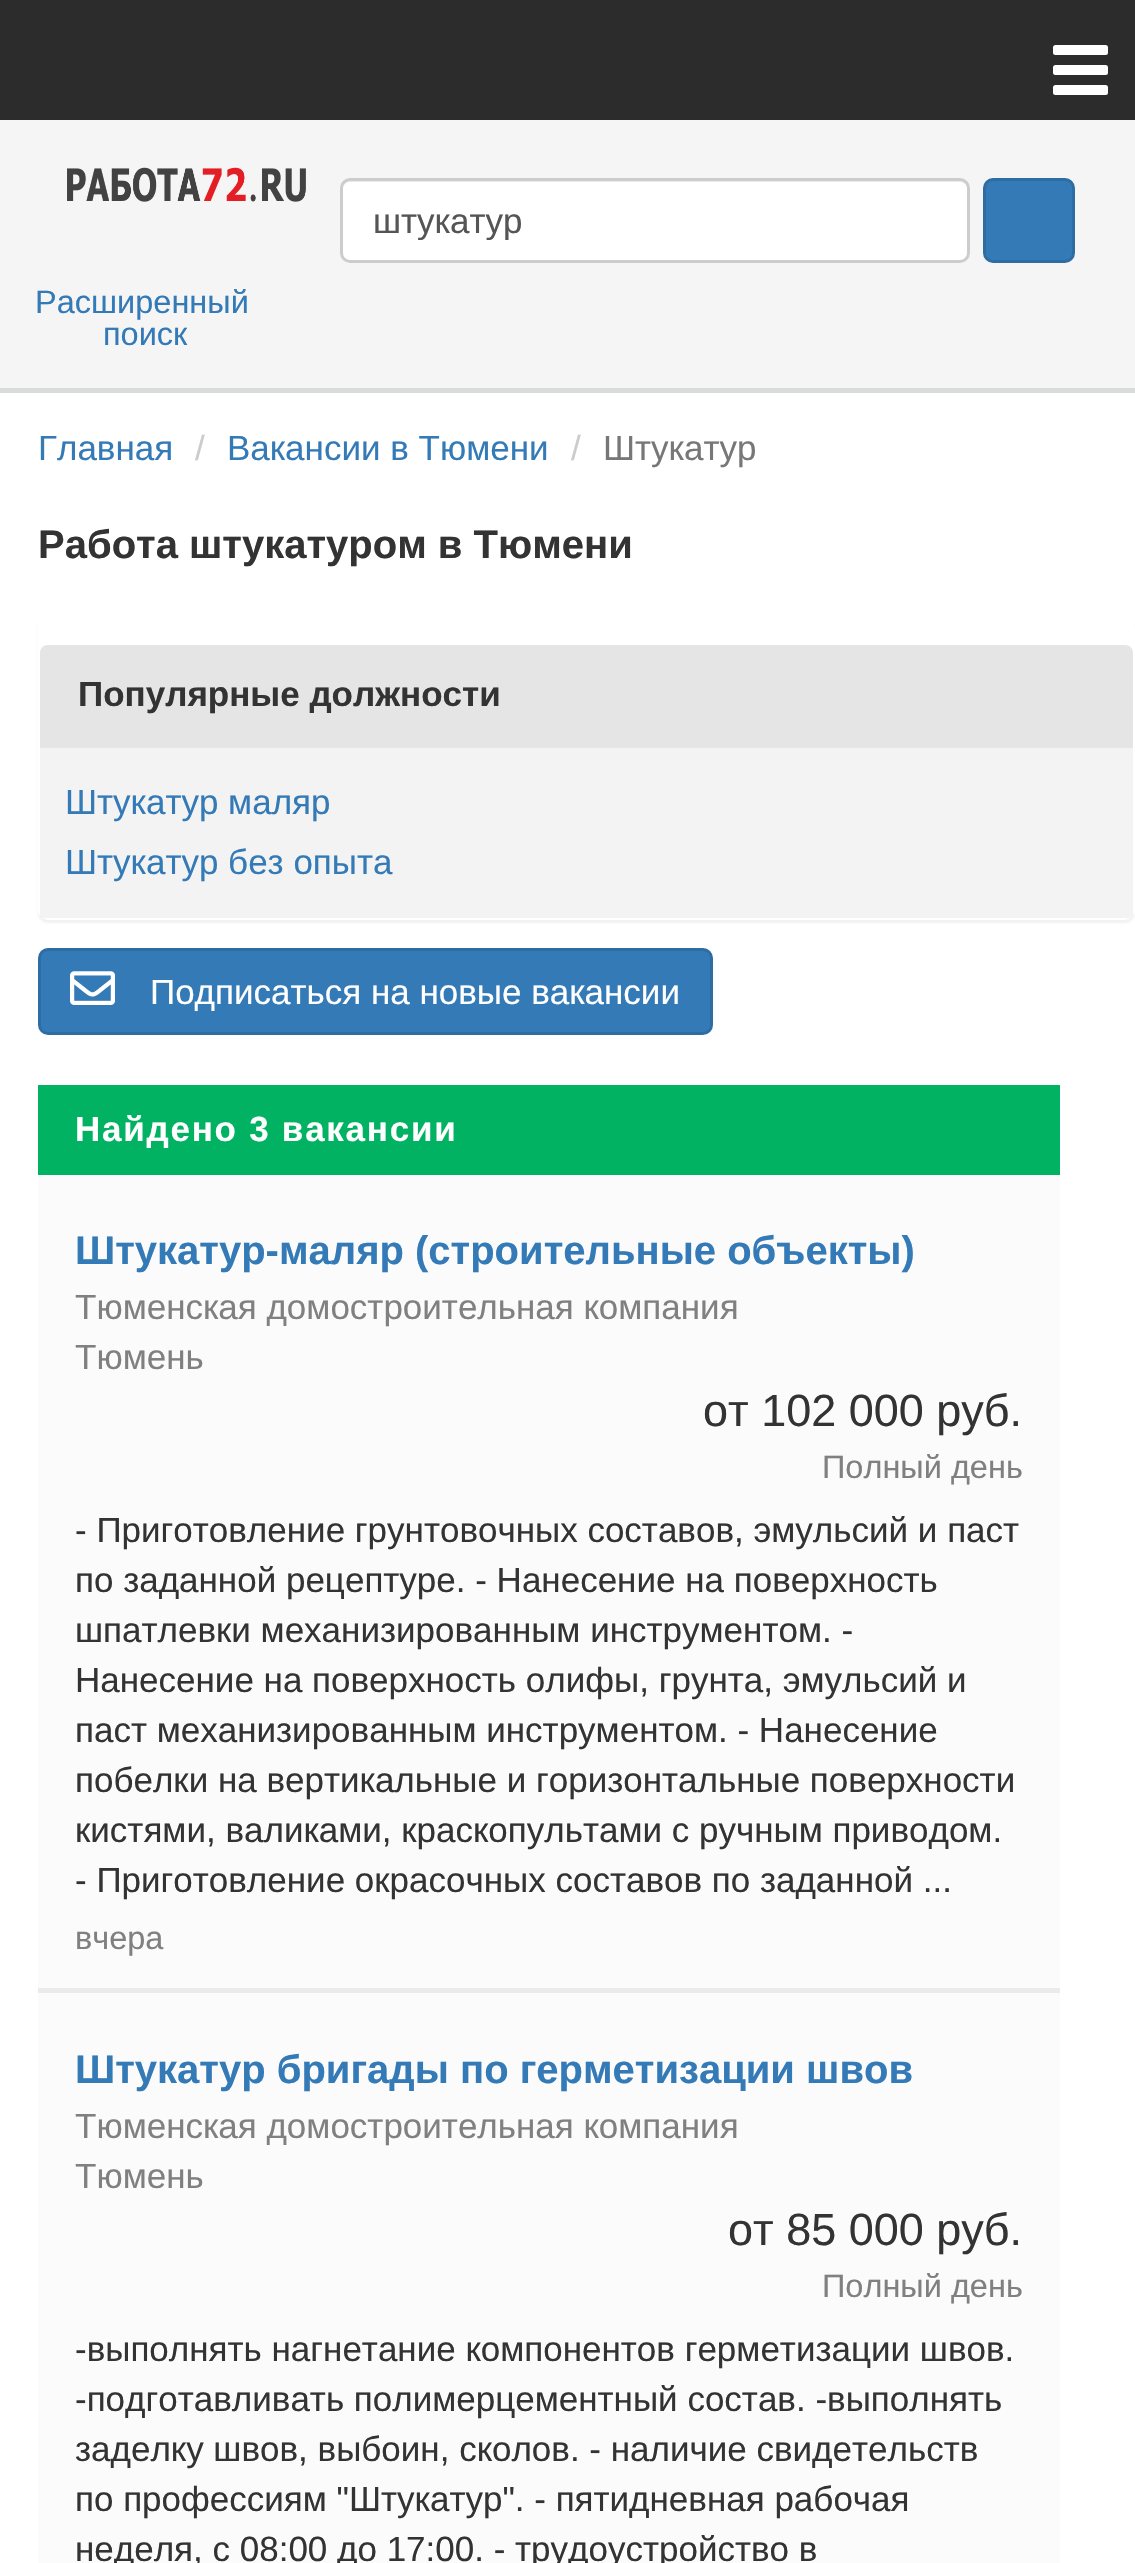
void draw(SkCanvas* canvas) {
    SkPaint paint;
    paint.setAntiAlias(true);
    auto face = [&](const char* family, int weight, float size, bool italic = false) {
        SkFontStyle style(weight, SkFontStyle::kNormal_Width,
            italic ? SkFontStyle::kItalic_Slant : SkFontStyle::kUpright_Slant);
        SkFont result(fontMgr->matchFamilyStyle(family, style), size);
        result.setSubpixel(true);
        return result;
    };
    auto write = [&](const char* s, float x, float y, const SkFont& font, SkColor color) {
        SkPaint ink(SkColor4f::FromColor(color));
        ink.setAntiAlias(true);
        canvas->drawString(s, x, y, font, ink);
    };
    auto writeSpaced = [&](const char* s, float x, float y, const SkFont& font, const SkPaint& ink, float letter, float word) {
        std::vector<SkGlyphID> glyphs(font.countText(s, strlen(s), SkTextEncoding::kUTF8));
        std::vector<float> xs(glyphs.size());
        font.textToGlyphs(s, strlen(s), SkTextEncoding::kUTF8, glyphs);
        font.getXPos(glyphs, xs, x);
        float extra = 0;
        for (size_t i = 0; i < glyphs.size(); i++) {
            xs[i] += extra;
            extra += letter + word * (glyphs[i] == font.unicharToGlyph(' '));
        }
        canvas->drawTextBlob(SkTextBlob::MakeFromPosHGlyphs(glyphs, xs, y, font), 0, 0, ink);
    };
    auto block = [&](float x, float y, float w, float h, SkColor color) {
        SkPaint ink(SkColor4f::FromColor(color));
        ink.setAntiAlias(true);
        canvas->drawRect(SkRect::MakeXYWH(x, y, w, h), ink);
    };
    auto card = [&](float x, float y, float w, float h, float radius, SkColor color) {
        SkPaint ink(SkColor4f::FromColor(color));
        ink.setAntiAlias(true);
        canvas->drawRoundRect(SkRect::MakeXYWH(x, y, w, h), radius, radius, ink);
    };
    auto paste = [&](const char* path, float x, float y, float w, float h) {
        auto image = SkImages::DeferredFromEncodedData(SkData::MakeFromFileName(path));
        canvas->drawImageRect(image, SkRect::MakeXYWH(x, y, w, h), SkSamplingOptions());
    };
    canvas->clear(SK_ColorWHITE);
    block(0, 0, 1135, 120, SkColorSetRGB(44, 44, 44));
    card(1053, 45, 55, 10, 2.5f, SK_ColorWHITE);
    card(1053, 65, 55, 10, 2.5f, SK_ColorWHITE);
    card(1053, 85, 55, 10, 2.5f, SK_ColorWHITE);
    block(0, 120, 1135, 268, SkColorSetRGB(245, 245, 245));
    block(0, 388, 1135, 5, SkColorSetRGB(217, 218, 218));
    paste("pic1.png", 67, 167, 239, 35);
    card(340, 178, 630, 85, 10, SK_ColorWHITE);
    paint.setColor(SkColorSetRGB(236, 236, 236));
    canvas->drawPath(SkPathBuilder().moveTo(350, 182).lineTo(960, 182).cubicTo(964, 182, 968, 186, 968, 190).lineTo(968, 188).cubicTo(968, 184, 964, 180, 960, 180).lineTo(351, 180).cubicTo(347, 180, 344, 183, 343, 186).cubicTo(345, 184, 347, 182, 350, 182).close().detach(), paint);
    paint.setStyle(SkPaint::kStroke_Style);
    paint.setStrokeWidth(3);
    paint.setColor(SkColorSetRGB(204, 204, 204));
    canvas->drawRoundRect(SkRect::MakeXYWH(341.5f, 179.5f, 627, 82), 8.5f, 8.5f, paint);
    canvas->save();
    canvas->clipRect(SkRect::MakeXYWH(373, 200, 565, 40));
    auto kFont1 = face("Liberation Sans", 400, 35);
    write("штукатур", 373, 233, kFont1, SkColorSetRGB(85, 85, 85));
    canvas->restore();
    paint.setStyle(SkPaint::kFill_Style);
    paint.setColor(SkColorSetRGB(51, 122, 183));
    canvas->drawRoundRect(SkRect::MakeXYWH(984.5f, 179.5f, 89, 82), 8.5f, 8.5f, paint);
    paint.setStyle(SkPaint::kStroke_Style);
    paint.setColor(SkColorSetRGB(46, 109, 164));
    canvas->drawRoundRect(SkRect::MakeXYWH(984.5f, 179.5f, 89, 82), 8.5f, 8.5f, paint);
    auto kFont2 = face("Liberation Sans", 400, 32.5f);
    write("Расширенный", 35, 313, kFont2, SkColorSetRGB(51, 122, 183));
    write("поиск", 103, 345, kFont2, SkColorSetRGB(51, 122, 183));
    write("Главная", 38, 460, kFont1, SkColorSetRGB(51, 122, 183));
    write("/", 195, 460, kFont1, SkColorSetRGB(204, 204, 204));
    write("Вакансии в Тюмени", 227, 460, kFont1, SkColorSetRGB(51, 122, 183));
    write("/", 571, 460, kFont1, SkColorSetRGB(204, 204, 204));
    write("Штукатур", 603, 460, kFont1, SkColorSetRGB(119, 119, 119));
    auto kFont3 = face("Liberation Sans", 700, 40);
    write("Работа штукатуром в Тюмени", 38, 558, kFont3, SkColorSetRGB(51, 51, 51));
    paint.setStyle(SkPaint::kFill_Style);
    paint.setColor(SkColorSetARGB(13, 0, 0, 0));
    paint.setMaskFilter(SkMaskFilter::MakeBlur(kNormal_SkBlurStyle, 1));
    canvas->drawRoundRect(SkRect::MakeXYWH(38, 620, 1097, 303), 10, 10, paint);
    paint.setMaskFilter(nullptr);
    card(38, 618, 1097, 302, 10, SK_ColorWHITE);
    paint.setColor(SkColorSetRGB(229, 229, 229));
    canvas->drawPath(SkPathBuilder().moveTo(48, 645).lineTo(1125, 645).cubicTo(1129.5f, 645, 1133, 648.5f, 1133, 653).lineTo(1133, 748).lineTo(40, 748).lineTo(40, 653).cubicTo(40, 648.5f, 43.5f, 645, 48, 645).close().detach(), paint);
    auto kFont4 = face("Liberation Sans", 700, 35);
    write("Популярные должности", 78, 706, kFont4, SkColorSetRGB(51, 51, 51));
    block(40, 748, 1093, 170, SkColorSetRGB(243, 243, 243));
    write("Штукатур маляр", 65, 814, kFont1, SkColorSetRGB(51, 122, 183));
    write("Штукатур без опыта", 65, 874, kFont1, SkColorSetRGB(51, 122, 183));
    paint.setColor(SkColorSetRGB(51, 122, 183));
    canvas->drawRoundRect(SkRect::MakeXYWH(39.5f, 949.5f, 672, 84), 8.5f, 8.5f, paint);
    paint.setStyle(SkPaint::kStroke_Style);
    paint.setColor(SkColorSetRGB(46, 109, 164));
    canvas->drawRoundRect(SkRect::MakeXYWH(39.5f, 949.5f, 672, 84), 8.5f, 8.5f, paint);
    paste("pic2.png", 70, 971, 45, 34);
    write("Подписаться на новые вакансии", 150, 1004, kFont1, SK_ColorWHITE);
    block(38, 1085, 1022, 90, SkColorSetRGB(0, 178, 98));
    paint.setStyle(SkPaint::kFill_Style);
    paint.setColor(SK_ColorWHITE);
    writeSpaced("Найдено 3 вакансии", 75, 1141, kFont4, paint, 1.75f, 0);
    block(38, 1175, 1022, 813, SkColorSetRGB(251, 251, 251));
    block(38, 1988, 1022, 5, SkColorSetRGB(235, 235, 235));
    write("Штукатур-маляр (строительные объекты)", 75, 1264, kFont3, SkColorSetRGB(51, 122, 183));
    write("Тюменская домостроительная компания", 75, 1319, kFont1, SkColorSetRGB(128, 128, 128));
    write("Тюмень", 75, 1369, kFont1, SkColorSetRGB(128, 128, 128));
    auto kFont5 = face("Liberation Sans", 400, 45);
    write("от 102 000 руб.", 703, 1426, kFont5, SkColorSetRGB(51, 51, 51));
    write("Полный день", 822, 1478, kFont2, SkColorSetRGB(128, 128, 128));
    write("- Приготовление грунтовочных составов, эмульсий и паст", 75, 1542, kFont1, SkColorSetRGB(51, 51, 51));
    write("по заданной рецептуре. - Нанесение на поверхность", 75, 1592, kFont1, SkColorSetRGB(51, 51, 51));
    write("шпатлевки механизированным инструментом. -", 75, 1642, kFont1, SkColorSetRGB(51, 51, 51));
    write("Нанесение на поверхность олифы, грунта, эмульсий и", 75, 1692, kFont1, SkColorSetRGB(51, 51, 51));
    write("паст механизированным инструментом. - Нанесение", 75, 1742, kFont1, SkColorSetRGB(51, 51, 51));
    write("побелки на вертикальные и горизонтальные поверхности", 75, 1792, kFont1, SkColorSetRGB(51, 51, 51));
    write("кистями, валиками, краскопультами с ручным приводом.", 75, 1842, kFont1, SkColorSetRGB(51, 51, 51));
    write("- Приготовление окрасочных составов по заданной ...", 75, 1892, kFont1, SkColorSetRGB(51, 51, 51));
    write("вчера", 75, 1949, kFont2, SkColorSetRGB(128, 128, 128));
    block(38, 1993, 1022, 570, SkColorSetRGB(251, 251, 251));
    write("Штукатур бригады по герметизации швов", 75, 2083, kFont3, SkColorSetRGB(51, 122, 183));
    write("Тюменская домостроительная компания", 75, 2138, kFont1, SkColorSetRGB(128, 128, 128));
    write("Тюмень", 75, 2188, kFont1, SkColorSetRGB(128, 128, 128));
    write("от 85 000 руб.", 728, 2245, kFont5, SkColorSetRGB(51, 51, 51));
    write("Полный день", 822, 2297, kFont2, SkColorSetRGB(128, 128, 128));
    write("-выполнять нагнетание компонентов герметизации швов.", 75, 2361, kFont1, SkColorSetRGB(51, 51, 51));
    write("-подготавливать полимерцементный состав. -выполнять", 75, 2411, kFont1, SkColorSetRGB(51, 51, 51));
    write("заделку швов, выбоин, сколов. - наличие свидетельств", 75, 2461, kFont1, SkColorSetRGB(51, 51, 51));
    write("по профессиям \"Штукатур\". - пятидневная рабочая", 75, 2511, kFont1, SkColorSetRGB(51, 51, 51));
    write("неделя, с 08:00 до 17:00. - трудоустройство в", 75, 2561, kFont1, SkColorSetRGB(51, 51, 51));
}
